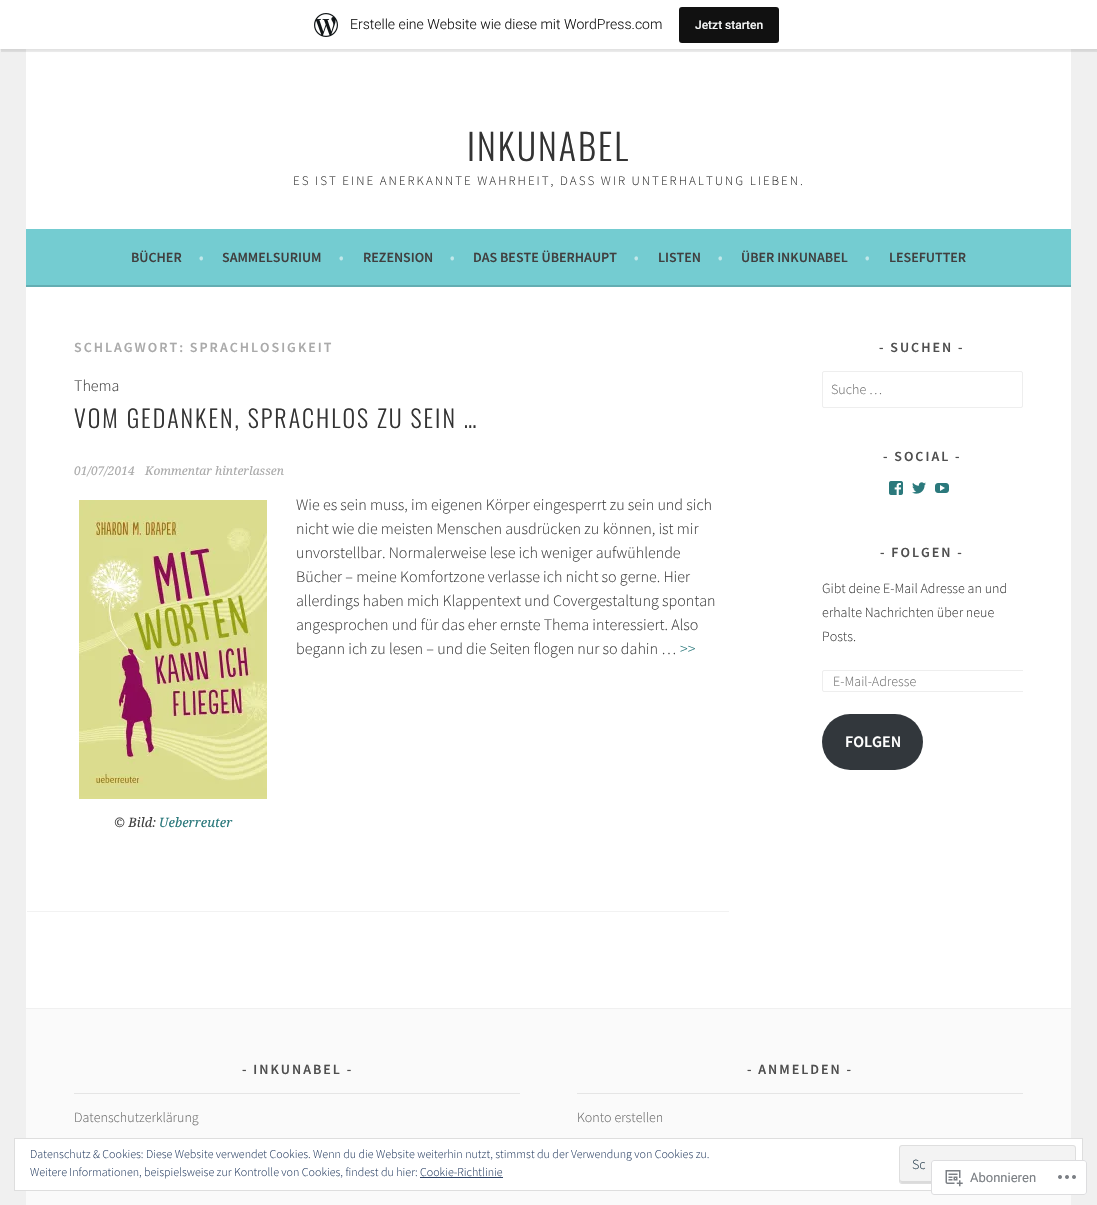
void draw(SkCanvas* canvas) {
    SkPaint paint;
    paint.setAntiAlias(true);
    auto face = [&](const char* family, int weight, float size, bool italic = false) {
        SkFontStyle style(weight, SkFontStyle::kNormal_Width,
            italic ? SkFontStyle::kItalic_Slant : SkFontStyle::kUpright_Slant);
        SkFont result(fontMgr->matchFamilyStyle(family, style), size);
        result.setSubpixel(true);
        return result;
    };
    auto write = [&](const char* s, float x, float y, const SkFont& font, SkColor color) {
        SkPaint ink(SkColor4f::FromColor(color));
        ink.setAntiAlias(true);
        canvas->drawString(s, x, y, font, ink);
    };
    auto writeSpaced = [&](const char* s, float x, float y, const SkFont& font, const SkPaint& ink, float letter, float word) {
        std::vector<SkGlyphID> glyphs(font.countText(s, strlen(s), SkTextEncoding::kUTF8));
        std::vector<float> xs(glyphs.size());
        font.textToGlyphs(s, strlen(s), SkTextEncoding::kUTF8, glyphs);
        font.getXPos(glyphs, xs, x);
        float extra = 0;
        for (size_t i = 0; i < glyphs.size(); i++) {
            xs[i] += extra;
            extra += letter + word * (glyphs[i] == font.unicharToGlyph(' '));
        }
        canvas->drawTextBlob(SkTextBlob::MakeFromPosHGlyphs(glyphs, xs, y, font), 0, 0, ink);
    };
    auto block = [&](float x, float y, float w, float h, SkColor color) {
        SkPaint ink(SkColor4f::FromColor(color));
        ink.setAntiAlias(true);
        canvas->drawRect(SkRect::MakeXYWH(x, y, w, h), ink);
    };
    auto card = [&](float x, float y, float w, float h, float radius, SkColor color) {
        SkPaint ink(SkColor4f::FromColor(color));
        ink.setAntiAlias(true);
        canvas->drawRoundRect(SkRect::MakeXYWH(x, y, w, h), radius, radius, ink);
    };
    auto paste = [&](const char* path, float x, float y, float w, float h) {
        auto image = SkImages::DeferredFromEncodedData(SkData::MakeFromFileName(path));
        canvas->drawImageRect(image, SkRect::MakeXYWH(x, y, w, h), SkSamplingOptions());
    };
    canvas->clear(SkColorSetRGB(240, 240, 240));
    block(26, 49, 1045, 180, SK_ColorWHITE);
    paint.setColor(SkColorSetARGB(13, 0, 0, 0));
    paint.setMaskFilter(SkMaskFilter::MakeBlur(kNormal_SkBlurStyle, 1));
    canvas->drawRect(SkRect::MakeXYWH(0, 1, 1097, 49), paint);
    paint.setMaskFilter(nullptr);
    paint.setColor(SkColorSetARGB(20, 0, 0, 0));
    canvas->drawPath(SkPathBuilder().moveTo(1, 49).lineTo(1, 52).lineTo(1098, 52).lineTo(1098, 3).lineTo(1097, 3).lineTo(1097, 49).close().detach(), paint);
    block(0, 0, 1097, 49, SK_ColorWHITE);
    paste("pic1.png", 314, 13, 24, 24);
    auto kFont1 = face("Roboto", 300, 14);
    write("Erstelle eine Website wie diese mit WordPress.com", 350, 29, kFont1, SkColorSetRGB(23, 23, 23));
    card(679, 7, 100, 36, 3, SkColorSetRGB(17, 17, 17));
    auto kFont2 = face("Roboto", 500, 12);
    write("Jetzt starten", 695, 29, kFont2, SkColorSetRGB(246, 247, 247));
    auto kFont3 = face("Oswald", 300, 36);
    paint.setColor(SkColorSetRGB(51, 51, 51));
    writeSpaced("INKUNABEL", 467, 161, kFont3, paint, 2, 0);
    auto kFont4 = face("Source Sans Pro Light", 300, 13);
    writeSpaced("ES IST EINE ANERKANNTE WAHRHEIT, DASS WIR UNTERHALTUNG LIEBEN.", 293, 185, kFont4, paint, 2, 0);
    block(26, 229, 1045, 56, SkColorSetRGB(116, 204, 209));
    block(26, 285, 1045, 2, SkColorSetRGB(99, 173, 178));
    auto kFont5 = face("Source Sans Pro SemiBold", 600, 14);
    write("BÜCHER", 131, 262, kFont5, SkColorSetRGB(64, 64, 64));
    write("•", 199, 262, kFont5, SkColorSetRGB(193, 232, 234));
    write("SAMMELSURIUM", 222, 262, kFont5, SkColorSetRGB(64, 64, 64));
    write("•", 339, 262, kFont5, SkColorSetRGB(193, 232, 234));
    write("REZENSION", 363, 262, kFont5, SkColorSetRGB(64, 64, 64));
    write("•", 450, 262, kFont5, SkColorSetRGB(193, 232, 234));
    write("DAS BESTE ÜBERHAUPT", 473, 262, kFont5, SkColorSetRGB(64, 64, 64));
    write("•", 634, 262, kFont5, SkColorSetRGB(193, 232, 234));
    write("LISTEN", 658, 262, kFont5, SkColorSetRGB(64, 64, 64));
    write("•", 718, 262, kFont5, SkColorSetRGB(193, 232, 234));
    write("ÜBER INKUNABEL", 741, 262, kFont5, SkColorSetRGB(64, 64, 64));
    write("•", 865, 262, kFont5, SkColorSetRGB(193, 232, 234));
    write("LESEFUTTER", 889, 262, kFont5, SkColorSetRGB(64, 64, 64));
    block(26, 287, 1045, 721, SK_ColorWHITE);
    paint.setColor(SkColorSetRGB(170, 170, 170));
    writeSpaced("SCHLAGWORT: SPRACHLOSIGKEIT", 74, 352, kFont5, paint, 2, 0);
    auto kFont6 = face("Source Sans Pro Light", 300, 16);
    write("Thema", 74, 391, kFont6, SkColorSetRGB(64, 64, 64));
    auto kFont7 = face("Oswald", 300, 24);
    paint.setColor(SkColorSetRGB(51, 51, 51));
    writeSpaced("VOM GEDANKEN, SPRACHLOS ZU SEIN …", 74, 428, kFont7, paint, 2, 0);
    auto kFont8 = face("Droid Serif", 400, 12, true);
    write("01/07/2014", 74, 475, kFont8, SkColorSetRGB(170, 170, 170));
    write("Kommentar hinterlassen", 145, 475, kFont8, SkColorSetRGB(170, 170, 170));
    write("Wie es sein muss, im eigenen Körper eingesperrt zu sein und sich", 296, 510, kFont6, SkColorSetRGB(64, 64, 64));
    write("nicht wie die meisten Menschen ausdrücken zu können, ist mir", 296, 534, kFont6, SkColorSetRGB(64, 64, 64));
    write("unvorstellbar. Normalerweise lese ich weniger aufwühlende", 296, 558, kFont6, SkColorSetRGB(64, 64, 64));
    write("Bücher – meine Komfortzone verlasse ich nicht so gerne. Hier", 296, 582, kFont6, SkColorSetRGB(64, 64, 64));
    write("allerdings haben mich Klappentext und Covergestaltung spontan", 296, 606, kFont6, SkColorSetRGB(64, 64, 64));
    write("angesprochen und für das eher ernste Thema interessiert. Also", 296, 630, kFont6, SkColorSetRGB(64, 64, 64));
    write("begann ich zu lesen – und die Seiten flogen nur so dahin …", 296, 654, kFont6, SkColorSetRGB(64, 64, 64));
    write(">>", 680, 654, kFont6, SkColorSetRGB(43, 121, 124));
    paste("pic2.png", 79, 500, 188, 299);
    auto kFont9 = face("Droid Serif", 400, 13, true);
    write("© Bild:", 114, 827, kFont9, SkColorSetRGB(64, 64, 64));
    write("Ueberreuter", 159, 827, kFont9, SkColorSetRGB(43, 121, 124));
    block(27, 911, 702, 1, SkColorSetRGB(242, 242, 242));
    paint.setColor(SkColorSetRGB(79, 79, 79));
    writeSpaced("- SUCHEN -", 879, 352, kFont5, paint, 2, 0);
    paint.setStyle(SkPaint::kStroke_Style);
    paint.setStrokeWidth(1);
    paint.setColor(SkColorSetRGB(238, 238, 238));
    canvas->drawRoundRect(SkRect::MakeXYWH(822.5f, 371.5f, 200, 36), 1.5f, 1.5f, paint);
    auto kFont10 = face("Source Sans Pro Light", 300, 14);
    write("Suche …", 831, 394, kFont10, SkColorSetRGB(117, 117, 117));
    paint.setStyle(SkPaint::kFill_Style);
    paint.setColor(SkColorSetRGB(79, 79, 79));
    writeSpaced("- SOCIAL -", 883, 461, kFont5, paint, 2, 0);
    paste("pic3.png", 889, 481, 14, 14);
    paste("pic4.png", 912, 482, 14, 12);
    paste("pic5.png", 935, 483, 14, 10);
    writeSpaced("- FOLGEN -", 880, 557, kFont5, paint, 2, 0);
    write("Gibt deine E-Mail Adresse an und", 822, 593, kFont10, SkColorSetRGB(64, 64, 64));
    write("erhalte Nachrichten über neue", 822, 617, kFont10, SkColorSetRGB(64, 64, 64));
    write("Posts.", 822, 641, kFont10, SkColorSetRGB(64, 64, 64));
    canvas->save();
    canvas->clipRect(SkRect::MakeXYWH(822, 335, 201, 471));
    paint.setStyle(SkPaint::kStroke_Style);
    paint.setColor(SkColorSetRGB(238, 238, 238));
    canvas->drawRoundRect(SkRect::MakeXYWH(822.5f, 670.5f, 212, 21), 1.5f, 1.5f, paint);
    canvas->restore();
    write("E-Mail-Adresse", 833, 686, kFont10, SkColorSetRGB(117, 117, 117));
    card(822, 714, 101, 56, 28, SkColorSetRGB(50, 55, 60));
    auto kFont11 = face("Source Sans Pro SemiBold", 600, 16);
    write("FOLGEN", 845, 747, kFont11, SK_ColorWHITE);
    block(26, 1009, 1045, 196, SkColorSetRGB(250, 250, 250));
    paint.setStyle(SkPaint::kFill_Style);
    paint.setColor(SkColorSetRGB(79, 79, 79));
    writeSpaced("- INKUNABEL -", 242, 1074, kFont5, paint, 2, 0);
    block(74, 1093, 446, 1, SkColorSetRGB(229, 229, 229));
    write("Datenschutzerklärung", 74, 1122, kFont10, SkColorSetRGB(109, 109, 109));
    writeSpaced("- ANMELDEN -", 747, 1074, kFont5, paint, 2, 0);
    block(577, 1093, 446, 1, SkColorSetRGB(229, 229, 229));
    write("Konto erstellen", 577, 1122, kFont10, SkColorSetRGB(109, 109, 109));
    paint.setColor(SK_ColorWHITE);
    canvas->drawRect(SkRect::MakeXYWH(14.5f, 1138.5f, 1068, 52), paint);
    paint.setStyle(SkPaint::kStroke_Style);
    paint.setColor(SkColorSetRGB(222, 222, 222));
    canvas->drawRect(SkRect::MakeXYWH(14.5f, 1138.5f, 1068, 52), paint);
    auto kFont12 = face("Source Sans Pro Light", 300, 12);
    write("Datenschutz & Cookies: Diese Website verwendet Cookies. Wenn du die Website weiterhin nutzt, stimmst du der Verwendung von Cookies zu.", 30, 1158, kFont12, SkColorSetRGB(46, 68, 103));
    card(899, 1145, 177, 39, 3, SkColorSetRGB(243, 243, 243));
    paint.setStyle(SkPaint::kFill_Style);
    paint.setColor(SkColorSetRGB(219, 219, 219));
    canvas->drawPath(SkPathBuilder().moveTo(900, 1179).cubicTo(900, 1180, 900, 1183, 902, 1183).lineTo(1073, 1183).cubicTo(1075, 1183, 1075, 1180, 1075, 1179).cubicTo(1075, 1180, 1074, 1181, 1073, 1181).lineTo(902, 1181).cubicTo(901, 1181, 900, 1180, 900, 1179).close().detach(), paint);
    paint.setStyle(SkPaint::kStroke_Style);
    paint.setColor(SkColorSetRGB(222, 222, 222));
    canvas->drawRoundRect(SkRect::MakeXYWH(899.5f, 1145.5f, 176, 38), 2.5f, 2.5f, paint);
    write("Sc", 912, 1169, kFont10, SkColorSetRGB(46, 68, 83));
    write("Weitere Informationen, beispielsweise zur Kontrolle von Cookies, findest du hier: Cookie-Richtlinie", 30, 1176, kFont12, SkColorSetRGB(46, 68, 103));
    block(420, 1177, 83, 1, SkColorSetRGB(46, 68, 103));
    card(931, 1160, 156, 35, 3, SkColorSetARGB(250, 255, 255, 255));
    paint.setColor(SkColorSetARGB(250, 220, 220, 222));
    canvas->drawRoundRect(SkRect::MakeXYWH(931.5f, 1160.5f, 155, 34), 2.5f, 2.5f, paint);
    paste("pic6.png", 945, 1170, 18, 17);
    auto kFont13 = face("Roboto", 400, 13);
    write("Abonnieren", 970, 1182, kFont13, SkColorSetRGB(123, 127, 132));
    paste("pic7.png", 1058, 1175, 18, 4);
}
